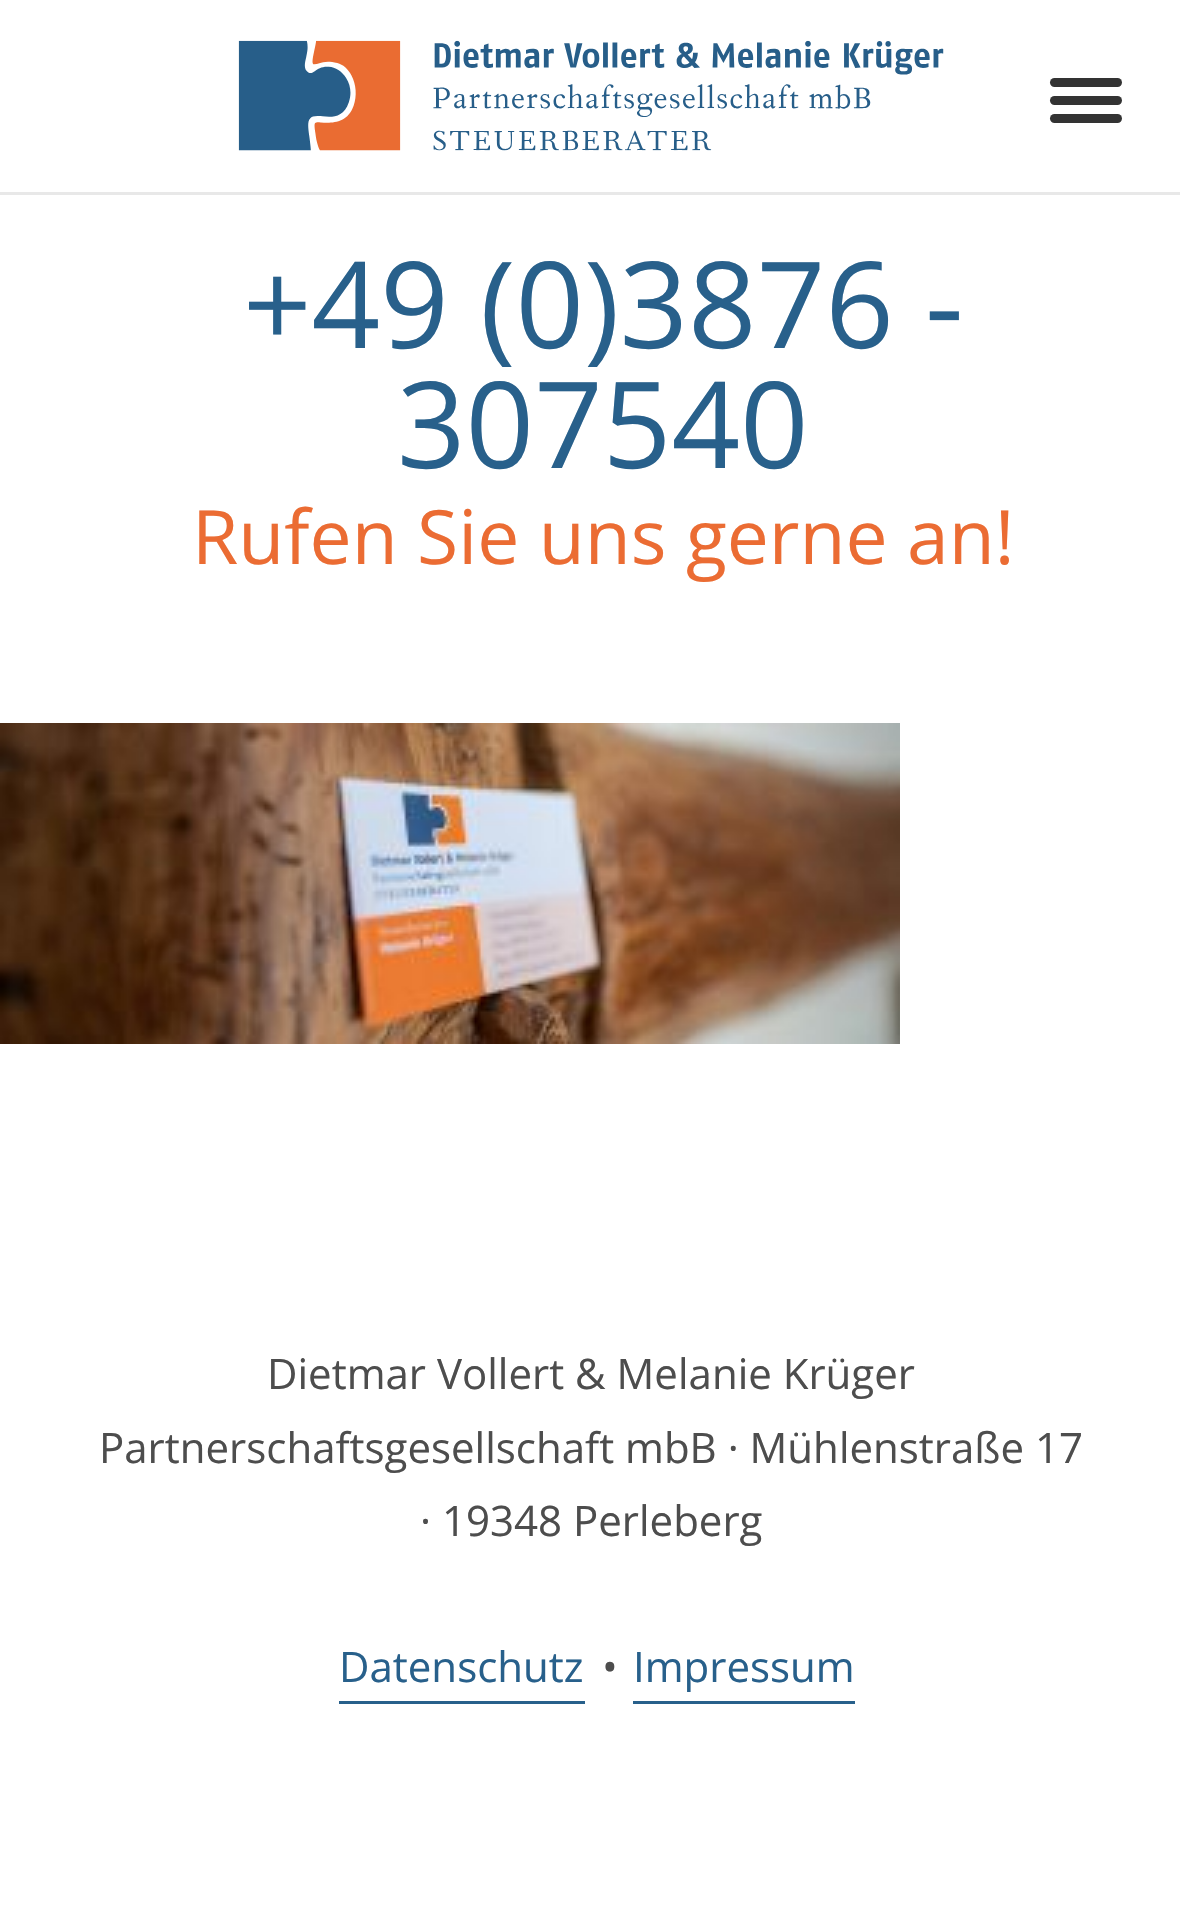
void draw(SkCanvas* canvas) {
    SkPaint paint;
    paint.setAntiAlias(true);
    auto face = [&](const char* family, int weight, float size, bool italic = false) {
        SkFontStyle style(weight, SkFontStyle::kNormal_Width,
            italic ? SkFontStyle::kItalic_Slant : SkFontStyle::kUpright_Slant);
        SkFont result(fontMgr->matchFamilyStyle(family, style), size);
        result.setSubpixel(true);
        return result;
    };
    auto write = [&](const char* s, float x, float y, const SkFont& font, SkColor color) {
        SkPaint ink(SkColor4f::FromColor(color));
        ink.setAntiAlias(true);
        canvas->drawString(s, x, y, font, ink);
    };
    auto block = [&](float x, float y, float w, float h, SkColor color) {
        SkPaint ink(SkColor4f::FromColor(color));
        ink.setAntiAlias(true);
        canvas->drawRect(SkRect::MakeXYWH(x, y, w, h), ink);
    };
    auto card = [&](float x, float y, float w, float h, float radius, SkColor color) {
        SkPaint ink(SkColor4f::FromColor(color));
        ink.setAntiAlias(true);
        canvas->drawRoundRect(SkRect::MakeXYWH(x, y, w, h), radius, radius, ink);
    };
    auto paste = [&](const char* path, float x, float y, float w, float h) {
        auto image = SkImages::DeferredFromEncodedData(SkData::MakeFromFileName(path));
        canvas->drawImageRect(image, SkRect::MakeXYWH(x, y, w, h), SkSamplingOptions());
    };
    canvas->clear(SK_ColorWHITE);
    paste("pic1.png", 238, 40, 706, 111);
    block(0, 192, 1180, 3, SkColorSetRGB(232, 232, 232));
    card(1050, 78, 72, 9, 4.5f, SkColorSetRGB(51, 51, 51));
    card(1050, 96, 72, 9, 4.5f, SkColorSetRGB(51, 51, 51));
    card(1050, 114, 72, 9, 4.5f, SkColorSetRGB(51, 51, 51));
    auto kFont1 = face("Open Sans", 400, 120);
    write("+49 (0)3876 -", 243, 348, kFont1, SkColorSetRGB(40, 96, 139));
    write("307540", 397, 468, kFont1, SkColorSetRGB(40, 96, 139));
    auto kFont2 = face("Open Sans", 400, 75);
    write("Rufen Sie uns gerne an!", 192, 564, kFont2, SkColorSetRGB(235, 108, 51));
    paste("pic2.png", 0, 723, 900, 321);
    auto kFont3 = face("Open Sans", 400, 42);
    write("Dietmar Vollert & Melanie Krüger", 267, 1389, kFont3, SkColorSetRGB(77, 77, 77));
    write("Partnerschaftsgesellschaft mbB · Mühlenstraße 17", 99, 1463, kFont3, SkColorSetRGB(77, 77, 77));
    write("· 19348 Perleberg", 420, 1536, kFont3, SkColorSetRGB(77, 77, 77));
    write("Datenschutz", 339, 1682, kFont3, SkColorSetRGB(40, 96, 139));
    block(339, 1701, 246, 3, SkColorSetRGB(40, 96, 139));
    write("•", 602, 1682, kFont3, SkColorSetRGB(77, 77, 77));
    write("Impressum", 633, 1682, kFont3, SkColorSetRGB(40, 96, 139));
    block(633, 1701, 222, 3, SkColorSetRGB(40, 96, 139));
}
